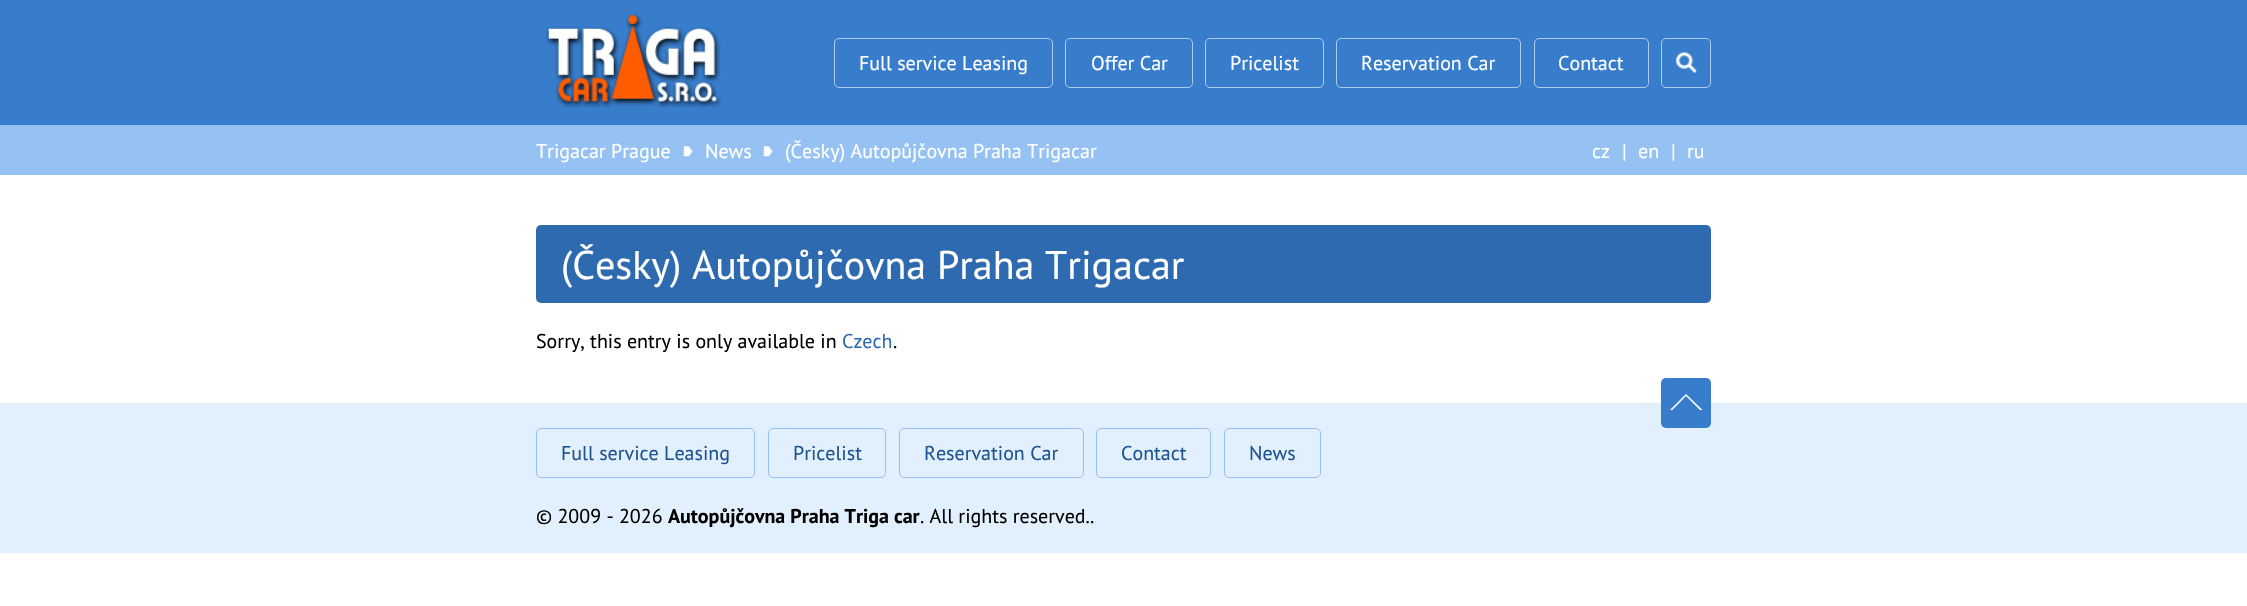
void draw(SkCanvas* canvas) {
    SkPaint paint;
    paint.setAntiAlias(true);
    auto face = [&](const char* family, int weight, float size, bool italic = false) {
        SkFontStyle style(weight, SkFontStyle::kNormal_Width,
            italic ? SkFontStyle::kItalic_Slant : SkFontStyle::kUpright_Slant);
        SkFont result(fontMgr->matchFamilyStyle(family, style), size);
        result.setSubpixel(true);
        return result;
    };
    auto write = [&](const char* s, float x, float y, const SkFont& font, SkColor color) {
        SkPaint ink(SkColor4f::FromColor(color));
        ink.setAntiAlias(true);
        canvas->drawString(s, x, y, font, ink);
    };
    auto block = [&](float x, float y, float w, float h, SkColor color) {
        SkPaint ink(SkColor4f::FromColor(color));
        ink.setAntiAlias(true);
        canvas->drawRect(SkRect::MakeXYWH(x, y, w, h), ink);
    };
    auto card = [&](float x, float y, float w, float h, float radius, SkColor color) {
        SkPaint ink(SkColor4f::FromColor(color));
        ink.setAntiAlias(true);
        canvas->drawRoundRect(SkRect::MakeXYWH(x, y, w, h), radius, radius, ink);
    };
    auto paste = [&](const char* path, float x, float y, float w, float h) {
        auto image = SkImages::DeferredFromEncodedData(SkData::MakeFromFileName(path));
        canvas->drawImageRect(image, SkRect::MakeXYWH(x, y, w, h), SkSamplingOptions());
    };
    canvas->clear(SK_ColorWHITE);
    block(0, 0, 2247, 125, SkColorSetRGB(55, 125, 204));
    paste("pic1.png", 545, 13, 177, 95);
    paint.setStyle(SkPaint::kStroke_Style);
    paint.setStrokeWidth(1);
    paint.setColor(SkColorSetRGB(175, 203, 235));
    canvas->drawRoundRect(SkRect::MakeXYWH(834.5f, 38.5f, 218, 49), 4.5f, 4.5f, paint);
    auto kFont1 = face("PT Sans", 400, 20);
    write("Full service Leasing", 859, 70, kFont1, SK_ColorWHITE);
    canvas->drawRoundRect(SkRect::MakeXYWH(1065.5f, 38.5f, 127, 49), 4.5f, 4.5f, paint);
    write("Offer Car", 1091, 70, kFont1, SK_ColorWHITE);
    canvas->drawRoundRect(SkRect::MakeXYWH(1205.5f, 38.5f, 118, 49), 4.5f, 4.5f, paint);
    write("Pricelist", 1230, 70, kFont1, SK_ColorWHITE);
    canvas->drawRoundRect(SkRect::MakeXYWH(1336.5f, 38.5f, 184, 49), 4.5f, 4.5f, paint);
    write("Reservation Car", 1361, 70, kFont1, SK_ColorWHITE);
    canvas->drawRoundRect(SkRect::MakeXYWH(1534.5f, 38.5f, 114, 49), 4.5f, 4.5f, paint);
    write("Contact", 1558, 70, kFont1, SK_ColorWHITE);
    canvas->drawRoundRect(SkRect::MakeXYWH(1661.5f, 38.5f, 49, 49), 4.5f, 4.5f, paint);
    card(1663, 39, 47, 47, 5, SkColorSetRGB(55, 125, 204));
    paste("pic2.png", 1676, 52, 21, 21);
    block(0, 125, 2247, 50, SkColorSetRGB(149, 194, 242));
    write("Trigacar Prague", 536, 158, kFont1, SK_ColorWHITE);
    paste("pic3.png", 683, 146, 10, 11);
    write("News", 705, 158, kFont1, SK_ColorWHITE);
    paste("pic3.png", 763, 146, 10, 11);
    write("(Česky) Autopůjčovna Praha Trigacar", 785, 158, kFont1, SK_ColorWHITE);
    write("cz", 1592, 158, kFont1, SK_ColorWHITE);
    write("|", 1622, 158, kFont1, SK_ColorWHITE);
    write("en", 1638, 158, kFont1, SK_ColorWHITE);
    write("|", 1671, 158, kFont1, SK_ColorWHITE);
    write("ru", 1687, 158, kFont1, SK_ColorWHITE);
    card(536, 225, 1175, 78, 5, SkColorSetRGB(45, 106, 175));
    auto kFont2 = face("PT Sans", 400, 40);
    write("(Česky) Autopůjčovna Praha Trigacar", 561, 279, kFont2, SK_ColorWHITE);
    write("Sorry, this entry is only available in", 536, 348, kFont1, SK_ColorBLACK);
    write("Czech", 842, 348, kFont1, SkColorSetRGB(45, 106, 175));
    write(".", 893, 348, kFont1, SK_ColorBLACK);
    block(0, 403, 2247, 150, SkColorSetRGB(226, 239, 252));
    card(1661, 378, 50, 50, 5, SkColorSetRGB(55, 125, 204));
    paint.setStyle(SkPaint::kFill_Style);
    paint.setColor(SK_ColorWHITE);
    canvas->drawPath(SkPathBuilder().moveTo(1702.5f, 410).lineTo(1670, 410).lineTo(1686, 394).close().detach(), paint);
    paint.setColor(SkColorSetRGB(55, 125, 204));
    canvas->drawPath(SkPathBuilder().moveTo(1702.5f, 412.5f).lineTo(1670, 412.5f).lineTo(1686, 396).close().detach(), paint);
    paint.setStyle(SkPaint::kStroke_Style);
    paint.setColor(SkColorSetRGB(149, 194, 242));
    canvas->drawRoundRect(SkRect::MakeXYWH(536.5f, 428.5f, 218, 49), 4.5f, 4.5f, paint);
    write("Full service Leasing", 561, 460, kFont1, SkColorSetRGB(29, 83, 144));
    canvas->drawRoundRect(SkRect::MakeXYWH(768.5f, 428.5f, 117, 49), 4.5f, 4.5f, paint);
    write("Pricelist", 793, 460, kFont1, SkColorSetRGB(29, 83, 144));
    canvas->drawRoundRect(SkRect::MakeXYWH(899.5f, 428.5f, 184, 49), 4.5f, 4.5f, paint);
    write("Reservation Car", 924, 460, kFont1, SkColorSetRGB(29, 83, 144));
    canvas->drawRoundRect(SkRect::MakeXYWH(1096.5f, 428.5f, 114, 49), 4.5f, 4.5f, paint);
    write("Contact", 1121, 460, kFont1, SkColorSetRGB(29, 83, 144));
    canvas->drawRoundRect(SkRect::MakeXYWH(1224.5f, 428.5f, 96, 49), 4.5f, 4.5f, paint);
    write("News", 1249, 460, kFont1, SkColorSetRGB(29, 83, 144));
    write("© 2009 - 2026", 536, 523, kFont1, SK_ColorBLACK);
    auto kFont3 = face("PT Sans", 700, 20);
    write("Autopůjčovna Praha Triga car", 668, 523, kFont3, SK_ColorBLACK);
    write(". All rights reserved..", 920, 523, kFont1, SK_ColorBLACK);
}
